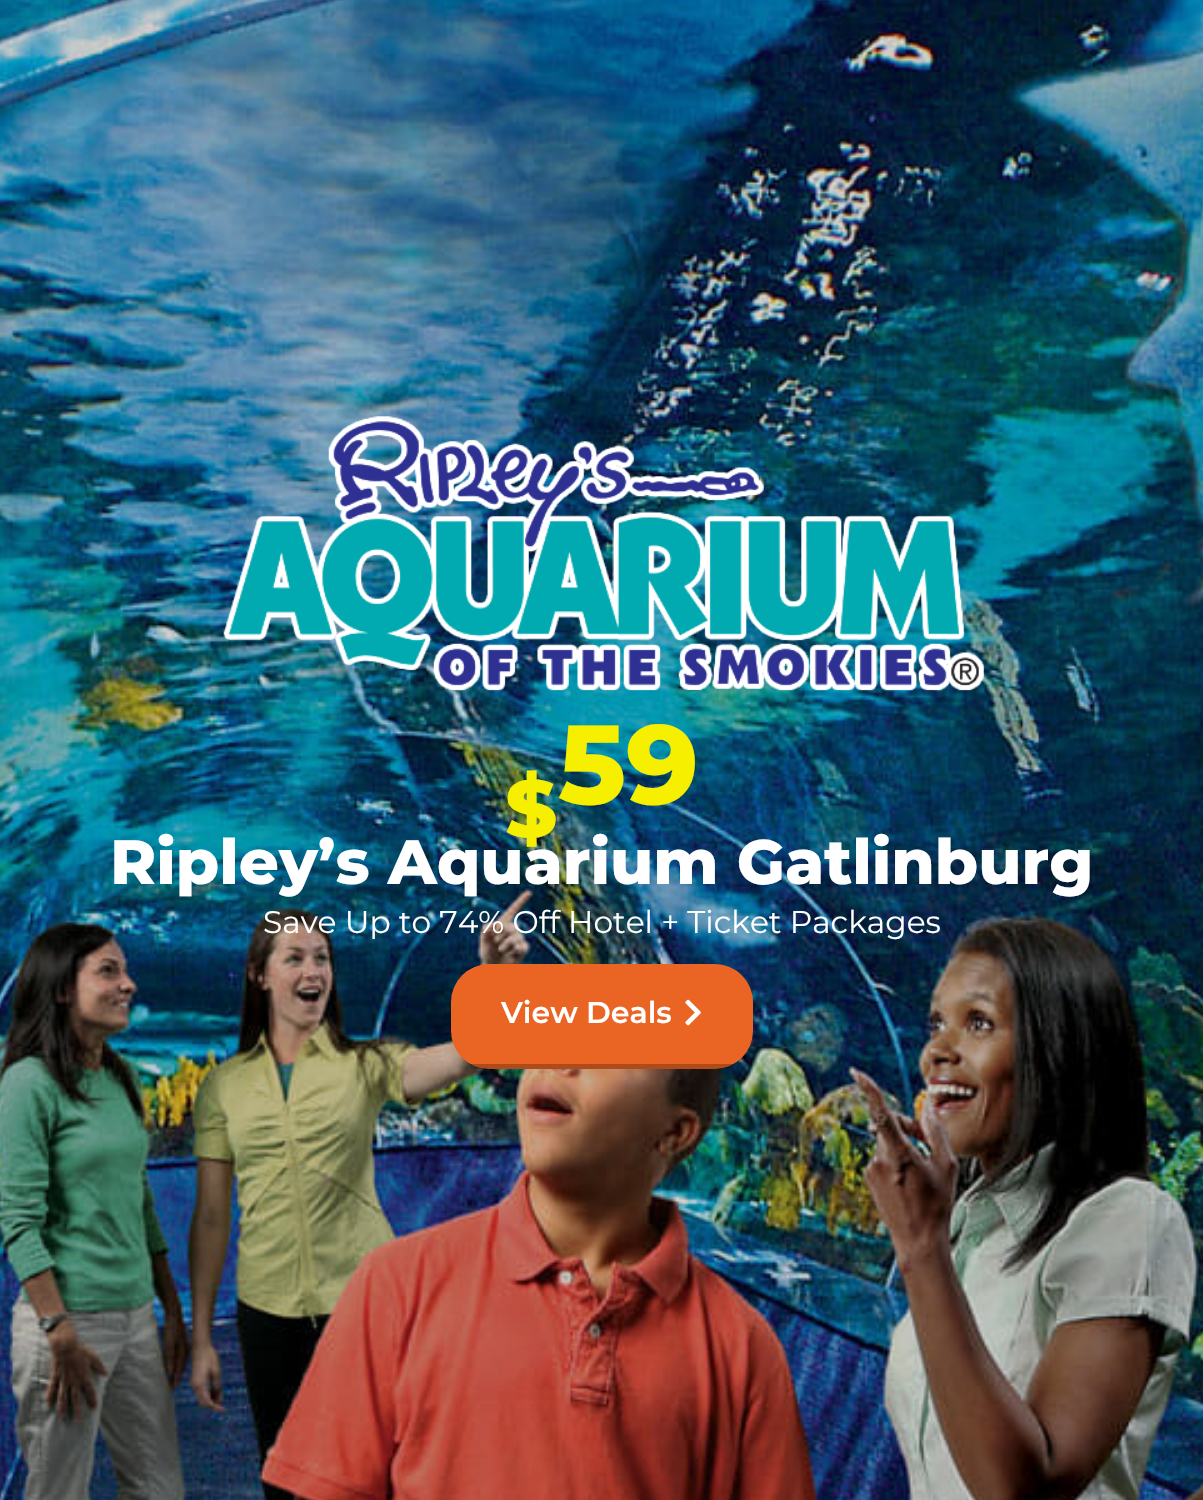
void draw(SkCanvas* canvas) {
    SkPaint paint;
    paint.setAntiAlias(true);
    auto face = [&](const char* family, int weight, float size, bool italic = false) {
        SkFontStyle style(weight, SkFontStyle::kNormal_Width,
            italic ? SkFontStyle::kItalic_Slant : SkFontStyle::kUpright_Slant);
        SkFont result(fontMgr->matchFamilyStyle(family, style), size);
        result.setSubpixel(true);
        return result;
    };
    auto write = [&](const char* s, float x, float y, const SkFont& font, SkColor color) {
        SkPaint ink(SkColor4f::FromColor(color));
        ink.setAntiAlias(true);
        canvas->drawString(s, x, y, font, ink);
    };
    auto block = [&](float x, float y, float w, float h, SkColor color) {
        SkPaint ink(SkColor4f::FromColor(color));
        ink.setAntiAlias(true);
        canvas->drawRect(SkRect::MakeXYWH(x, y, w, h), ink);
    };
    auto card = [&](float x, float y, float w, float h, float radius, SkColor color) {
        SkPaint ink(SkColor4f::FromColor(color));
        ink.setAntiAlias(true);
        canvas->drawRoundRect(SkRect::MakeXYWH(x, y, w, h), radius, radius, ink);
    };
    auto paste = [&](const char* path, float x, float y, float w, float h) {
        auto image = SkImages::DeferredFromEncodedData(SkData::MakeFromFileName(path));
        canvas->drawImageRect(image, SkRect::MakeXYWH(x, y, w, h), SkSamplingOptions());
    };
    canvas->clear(SK_ColorWHITE);
    paste("pic1.png", 0, 0, 1203, 1500);
    paste("pic2.png", 223, 416, 761, 275);
    auto kFont1 = face("Montserrat", 800, 81);
    write("$", 505, 837, kFont1, SkColorSetRGB(247, 239, 0));
    auto kFont2 = face("Montserrat", 800, 112);
    write("59", 558, 804, kFont2, SkColorSetRGB(247, 239, 0));
    auto kFont3 = face("Montserrat", 800, 62.5f);
    write("Ripley’s Aquarium Gatlinburg", 110, 884, kFont3, SK_ColorWHITE);
    auto kFont4 = face("Montserrat", 400, 31.25f);
    write("Save Up to 74% Off Hotel + Ticket Packages", 263, 933, kFont4, SK_ColorWHITE);
    card(451, 964, 302, 105, 38, SkColorSetRGB(234, 100, 35));
    block(470, 1064, 264, 5, SkColorSetARGB(64, 0, 0, 0));
    auto kFont5 = face("Montserrat", 600, 30);
    write("View Deals", 501, 1023, kFont5, SK_ColorWHITE);
    paste("pic3.png", 685, 999, 16, 27);
}
